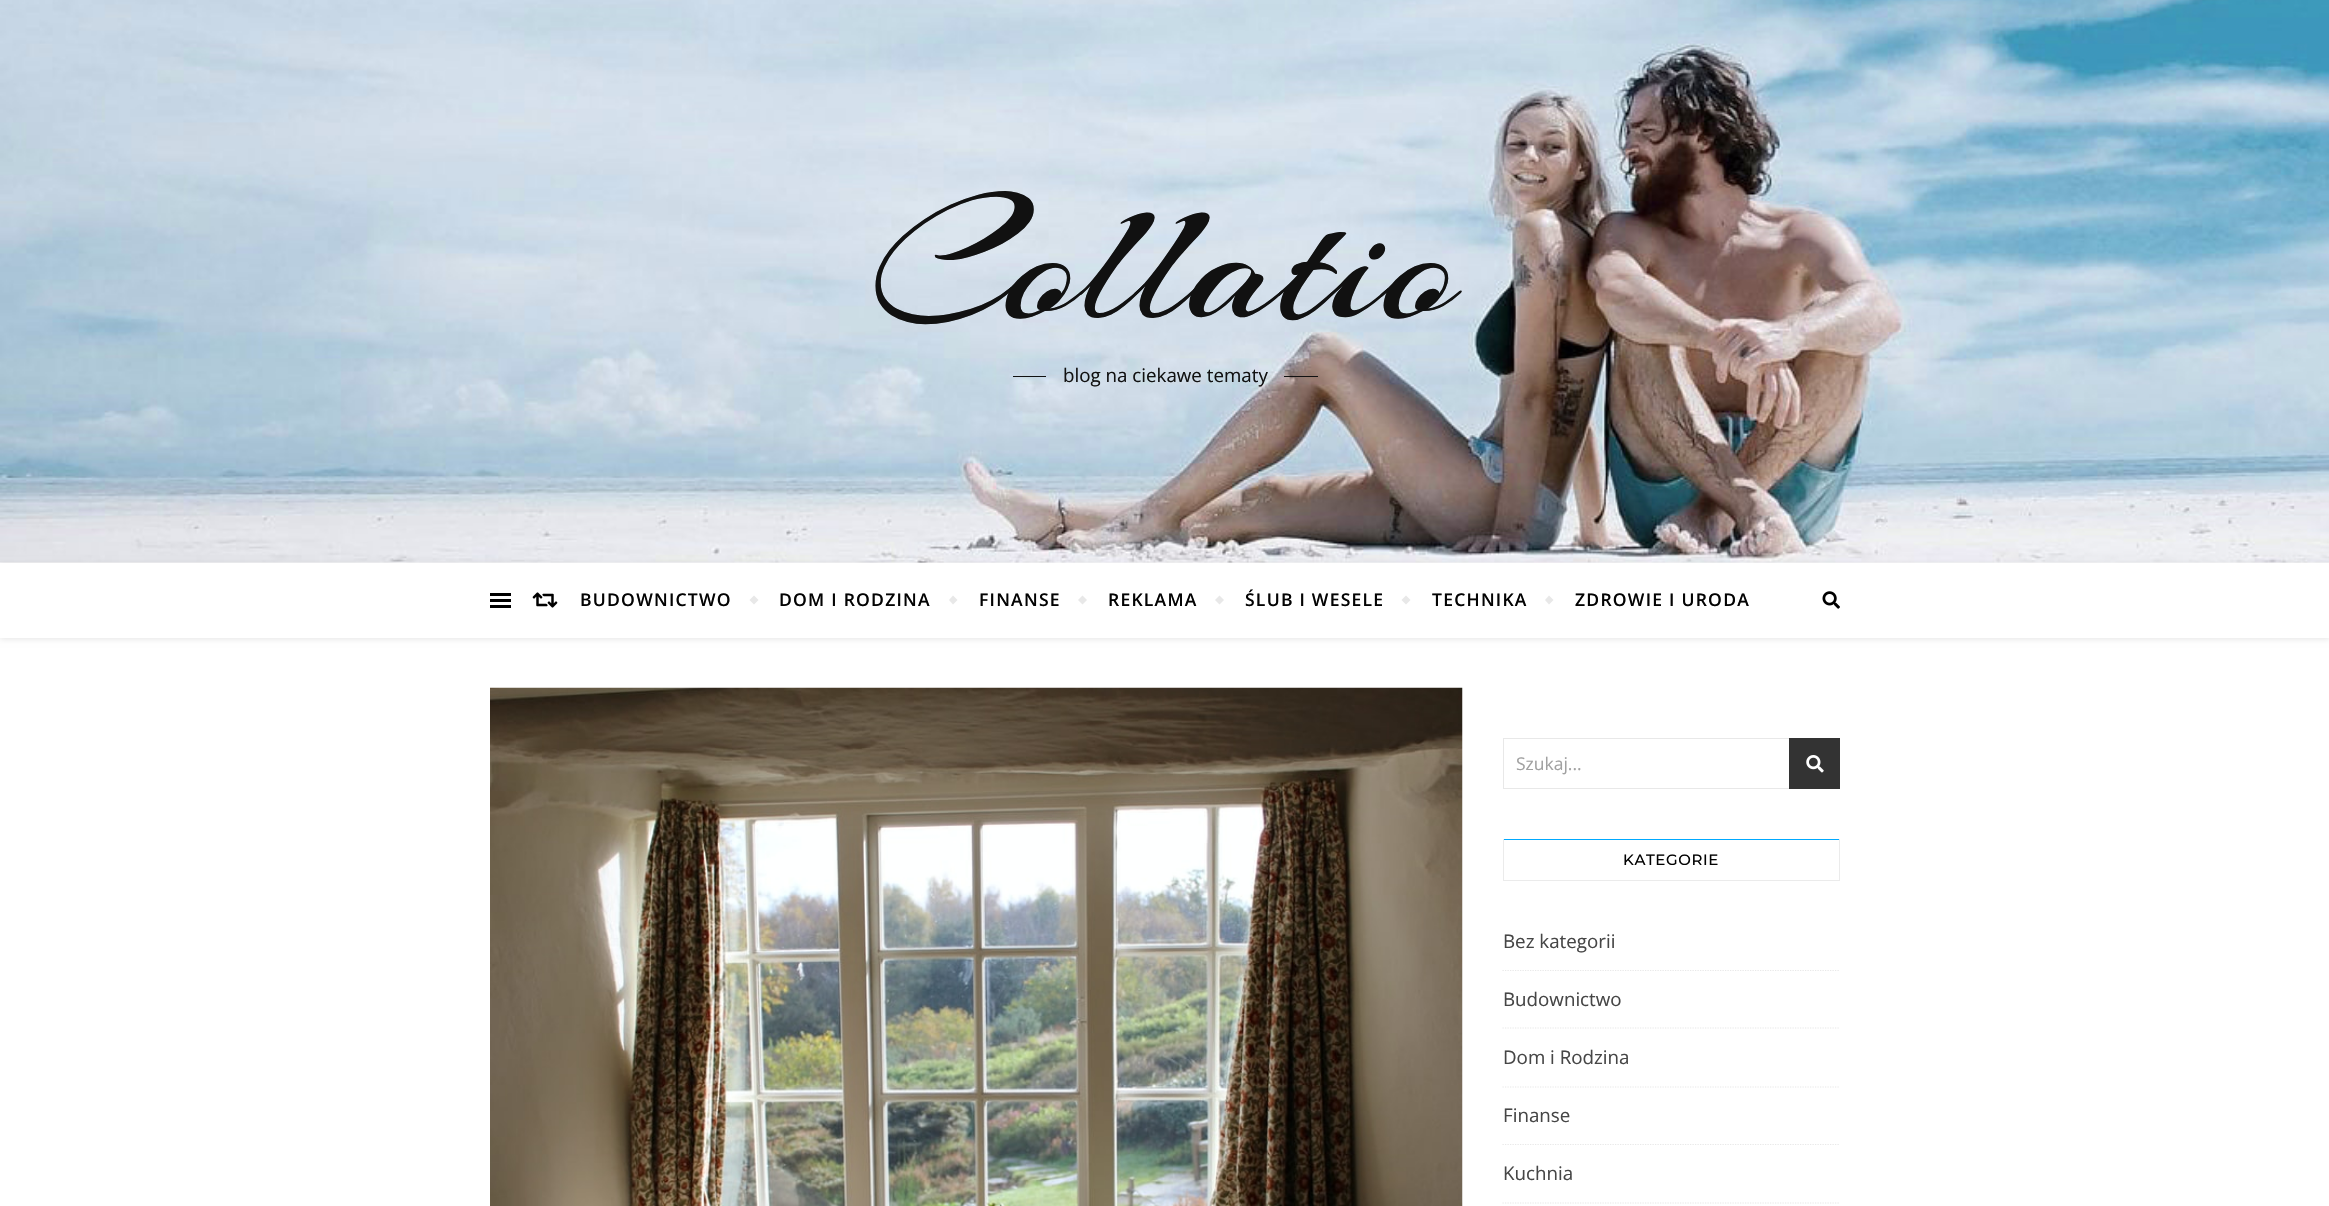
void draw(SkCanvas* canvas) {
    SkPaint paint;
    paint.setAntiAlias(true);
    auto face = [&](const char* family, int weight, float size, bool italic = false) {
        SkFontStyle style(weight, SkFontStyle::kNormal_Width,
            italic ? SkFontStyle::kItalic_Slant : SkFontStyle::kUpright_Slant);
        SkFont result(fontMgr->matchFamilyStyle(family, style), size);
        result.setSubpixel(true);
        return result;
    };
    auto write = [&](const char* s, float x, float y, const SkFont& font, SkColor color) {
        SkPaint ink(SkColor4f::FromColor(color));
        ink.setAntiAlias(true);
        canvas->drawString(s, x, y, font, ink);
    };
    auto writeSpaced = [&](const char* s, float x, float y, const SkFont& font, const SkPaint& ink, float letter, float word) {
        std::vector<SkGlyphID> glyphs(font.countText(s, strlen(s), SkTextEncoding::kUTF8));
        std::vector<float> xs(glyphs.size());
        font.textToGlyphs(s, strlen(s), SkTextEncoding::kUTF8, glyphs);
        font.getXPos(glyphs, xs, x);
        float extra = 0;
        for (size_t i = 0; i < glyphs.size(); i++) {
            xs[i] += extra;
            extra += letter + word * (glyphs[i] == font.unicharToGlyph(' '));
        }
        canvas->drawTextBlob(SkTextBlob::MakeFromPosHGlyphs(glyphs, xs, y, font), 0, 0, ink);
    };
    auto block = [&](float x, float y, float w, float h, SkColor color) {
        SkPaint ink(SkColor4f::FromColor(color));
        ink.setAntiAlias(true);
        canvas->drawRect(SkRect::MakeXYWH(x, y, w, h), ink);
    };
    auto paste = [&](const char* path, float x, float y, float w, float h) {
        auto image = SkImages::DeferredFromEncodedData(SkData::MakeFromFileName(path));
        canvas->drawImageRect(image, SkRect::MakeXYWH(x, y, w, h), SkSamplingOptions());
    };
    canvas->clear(SK_ColorWHITE);
    paste("pic1.png", 0, 0, 2329, 563);
    auto kFont1 = face("Arizonia", 400, 187.5f);
    write("Collatio", 871, 317, kFont1, SkColorSetRGB(17, 17, 17));
    block(1013, 376, 33, 1, SkColorSetRGB(17, 17, 17));
    auto kFont2 = face("Open Sans", 400, 18.75f);
    write("blog na ciekawe tematy", 1063, 382, kFont2, SkColorSetRGB(17, 17, 17));
    block(1284, 376, 34, 1, SkColorSetRGB(17, 17, 17));
    paint.setColor(SkColorSetARGB(26, 0, 0, 0));
    paint.setMaskFilter(SkMaskFilter::MakeBlur(kNormal_SkBlurStyle, 3));
    canvas->drawRect(SkRect::MakeXYWH(0, 564, 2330, 75), paint);
    paint.setMaskFilter(nullptr);
    block(0, 563, 2329, 75, SK_ColorWHITE);
    block(490, 593, 21, 3, SK_ColorBLACK);
    block(490, 599, 21, 3, SK_ColorBLACK);
    block(490, 605, 21, 3, SK_ColorBLACK);
    paste("pic2.png", 532, 592, 26, 16);
    auto kFont3 = face("Open Sans", 600, 17.5f);
    paint.setColor(SkColorSetRGB(3, 3, 3));
    writeSpaced("BUDOWNICTWO", 580, 606, kFont3, paint, 1.25f, 0);
    paint.setColor(SkColorSetRGB(232, 232, 232));
    canvas->drawPath(SkPathBuilder().moveTo(749.5f, 600).lineTo(754, 595.5f).lineTo(758.5f, 600).lineTo(754, 604.5f).close().detach(), paint);
    paint.setColor(SkColorSetRGB(3, 3, 3));
    writeSpaced("DOM I RODZINA", 779, 606, kFont3, paint, 1.25f, 0);
    paint.setColor(SkColorSetRGB(232, 232, 232));
    canvas->drawPath(SkPathBuilder().moveTo(949, 600).lineTo(953, 595.5f).lineTo(957.5f, 600).lineTo(953, 604.5f).close().detach(), paint);
    paint.setColor(SkColorSetRGB(3, 3, 3));
    writeSpaced("FINANSE", 979, 606, kFont3, paint, 1.25f, 0);
    paint.setColor(SkColorSetRGB(232, 232, 232));
    canvas->drawPath(SkPathBuilder().moveTo(1078, 600).lineTo(1082.5f, 595.5f).lineTo(1087, 600).lineTo(1082.5f, 604.5f).close().detach(), paint);
    paint.setColor(SkColorSetRGB(3, 3, 3));
    writeSpaced("REKLAMA", 1108, 606, kFont3, paint, 1.25f, 0);
    paint.setColor(SkColorSetRGB(232, 232, 232));
    canvas->drawPath(SkPathBuilder().moveTo(1215, 600).lineTo(1219.5f, 595.5f).lineTo(1224, 600).lineTo(1219.5f, 604.5f).close().detach(), paint);
    paint.setColor(SkColorSetRGB(3, 3, 3));
    writeSpaced("ŚLUB I WESELE", 1245, 606, kFont3, paint, 1.25f, 0);
    paint.setColor(SkColorSetRGB(232, 232, 232));
    canvas->drawPath(SkPathBuilder().moveTo(1401.5f, 600).lineTo(1406, 595.5f).lineTo(1410.5f, 600).lineTo(1406, 604.5f).close().detach(), paint);
    paint.setColor(SkColorSetRGB(3, 3, 3));
    writeSpaced("TECHNIKA", 1432, 606, kFont3, paint, 1.25f, 0);
    paint.setColor(SkColorSetRGB(232, 232, 232));
    canvas->drawPath(SkPathBuilder().moveTo(1545, 600).lineTo(1549, 595.5f).lineTo(1553.5f, 600).lineTo(1549, 604.5f).close().detach(), paint);
    paint.setColor(SkColorSetRGB(3, 3, 3));
    writeSpaced("ZDROWIE I URODA", 1575, 606, kFont3, paint, 1.25f, 0);
    paste("pic3.png", 1822, 591, 18, 18);
    paste("pic4.png", 490, 687, 973, 519);
    paint.setStyle(SkPaint::kStroke_Style);
    paint.setStrokeWidth(1);
    paint.setColor(SkColorSetRGB(232, 232, 232));
    canvas->drawRect(SkRect::MakeXYWH(1503.5f, 738.5f, 336, 50), paint);
    auto kFont4 = face("Open Sans", 400, 17.5f);
    write("Szukaj...", 1516, 770, kFont4, SkColorSetRGB(161, 161, 161));
    block(1789, 738, 51, 51, SkColorSetRGB(51, 51, 51));
    paste("pic5.png", 1806, 755, 18, 18);
    block(1503, 839, 337, 1, SkColorSetRGB(0, 169, 255));
    block(1839, 839, 1, 42, SkColorSetRGB(235, 235, 235));
    block(1503, 880, 337, 1, SkColorSetRGB(235, 235, 235));
    block(1503, 839, 1, 42, SkColorSetRGB(235, 235, 235));
    auto kFont5 = face("Montserrat", 500, 15);
    paint.setStyle(SkPaint::kFill_Style);
    paint.setColor(SkColorSetRGB(3, 3, 3));
    writeSpaced("KATEGORIE", 1623, 865, kFont5, paint, 0.6f, 0);
    paint.setStyle(SkPaint::kStroke_Style);
    paint.setStrokeWidth(1.2f);
    paint.setColor(SkColorSetRGB(232, 232, 232));
    paint.setPathEffect(SkDashPathEffect::Make({{1.25f, 1.25f}}, 0));
    canvas->drawPath(SkPathBuilder().moveTo(1502.5f, 970.5f).lineTo(1840, 970.5f).detach(), paint);
    paint.setPathEffect(nullptr);
    write("Bez kategorii", 1503, 948, kFont2, SkColorSetRGB(70, 70, 70));
    paint.setPathEffect(SkDashPathEffect::Make({{1.25f, 1.25f}}, 0));
    canvas->drawPath(SkPathBuilder().moveTo(1502.5f, 1028).lineTo(1840, 1028).detach(), paint);
    paint.setPathEffect(nullptr);
    write("Budownictwo", 1503, 1006, kFont2, SkColorSetRGB(70, 70, 70));
    paint.setPathEffect(SkDashPathEffect::Make({{1.25f, 1.25f}}, 0));
    canvas->drawPath(SkPathBuilder().moveTo(1502.5f, 1087).lineTo(1840, 1087).detach(), paint);
    paint.setPathEffect(nullptr);
    write("Dom i Rodzina", 1503, 1064, kFont2, SkColorSetRGB(70, 70, 70));
    paint.setPathEffect(SkDashPathEffect::Make({{1.25f, 1.25f}}, 0));
    canvas->drawPath(SkPathBuilder().moveTo(1502.5f, 1144.5f).lineTo(1840, 1144.5f).detach(), paint);
    paint.setPathEffect(nullptr);
    write("Finanse", 1503, 1122, kFont2, SkColorSetRGB(70, 70, 70));
    paint.setPathEffect(SkDashPathEffect::Make({{1.25f, 1.25f}}, 0));
    canvas->drawPath(SkPathBuilder().moveTo(1502.5f, 1203).lineTo(1840, 1203).detach(), paint);
    paint.setPathEffect(nullptr);
    write("Kuchnia", 1503, 1180, kFont2, SkColorSetRGB(70, 70, 70));
}
